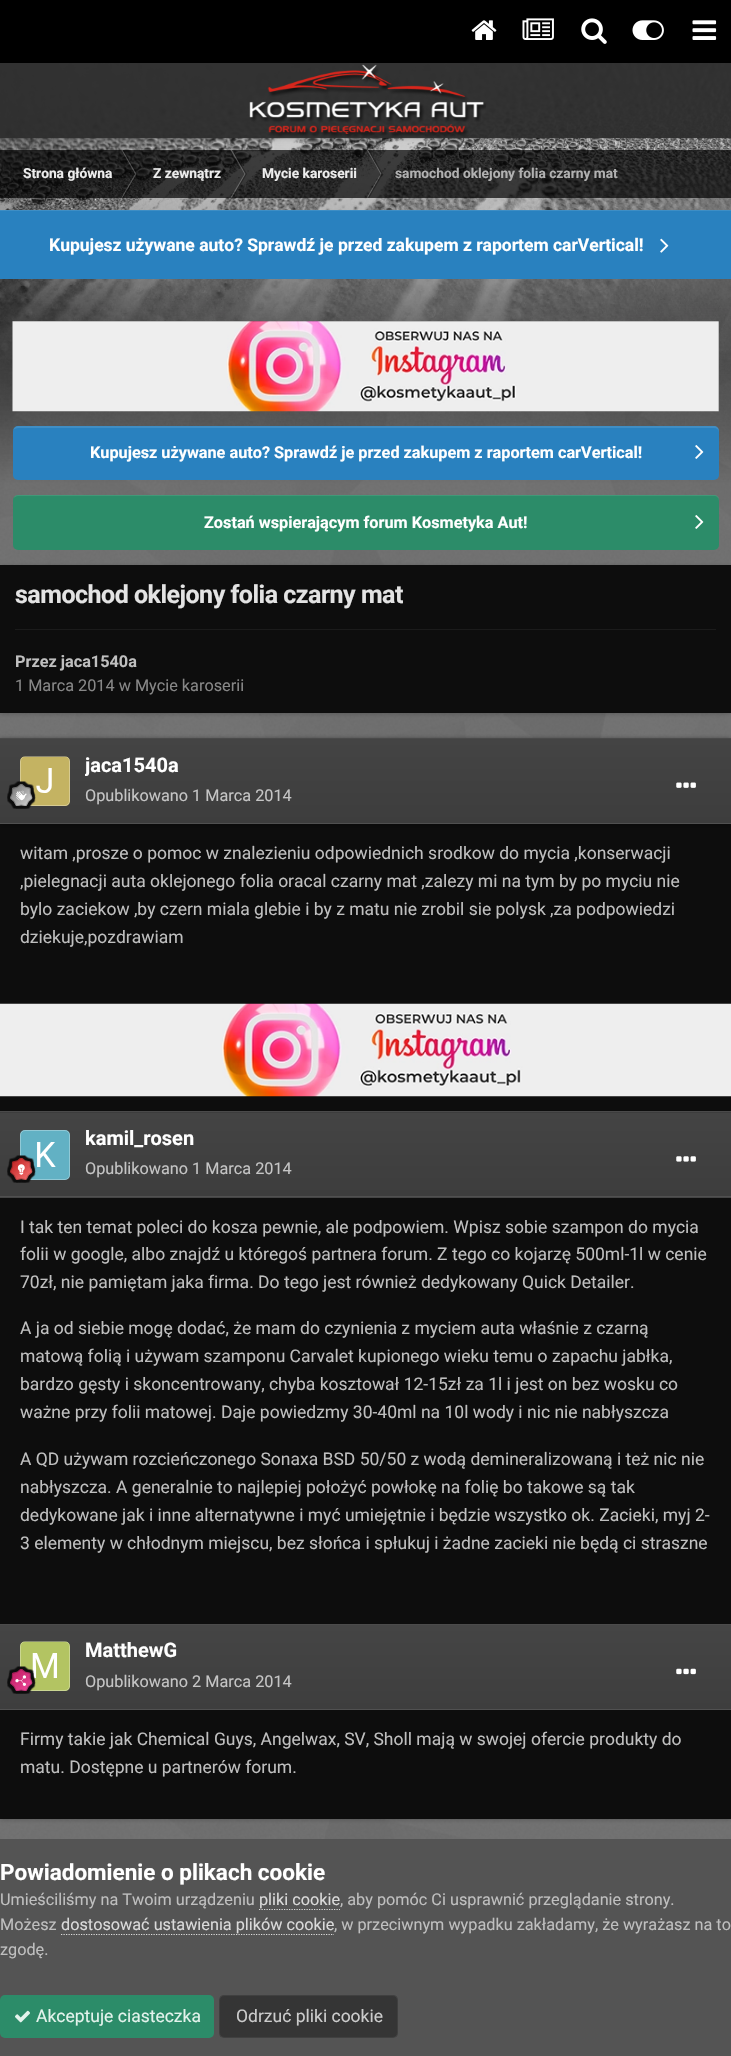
void draw(SkCanvas* canvas) {
    SkPaint paint;
    paint.setAntiAlias(true);
    auto face = [&](const char* family, int weight, float size, bool italic = false) {
        SkFontStyle style(weight, SkFontStyle::kNormal_Width,
            italic ? SkFontStyle::kItalic_Slant : SkFontStyle::kUpright_Slant);
        SkFont result(fontMgr->matchFamilyStyle(family, style), size);
        result.setSubpixel(true);
        return result;
    };
    auto write = [&](const char* s, float x, float y, const SkFont& font, SkColor color) {
        SkPaint ink(SkColor4f::FromColor(color));
        ink.setAntiAlias(true);
        canvas->drawString(s, x, y, font, ink);
    };
    auto writeSpaced = [&](const char* s, float x, float y, const SkFont& font, const SkPaint& ink, float letter, float word) {
        std::vector<SkGlyphID> glyphs(font.countText(s, strlen(s), SkTextEncoding::kUTF8));
        std::vector<float> xs(glyphs.size());
        font.textToGlyphs(s, strlen(s), SkTextEncoding::kUTF8, glyphs);
        font.getXPos(glyphs, xs, x);
        float extra = 0;
        for (size_t i = 0; i < glyphs.size(); i++) {
            xs[i] += extra;
            extra += letter + word * (glyphs[i] == font.unicharToGlyph(' '));
        }
        canvas->drawTextBlob(SkTextBlob::MakeFromPosHGlyphs(glyphs, xs, y, font), 0, 0, ink);
    };
    auto block = [&](float x, float y, float w, float h, SkColor color) {
        SkPaint ink(SkColor4f::FromColor(color));
        ink.setAntiAlias(true);
        canvas->drawRect(SkRect::MakeXYWH(x, y, w, h), ink);
    };
    auto card = [&](float x, float y, float w, float h, float radius, SkColor color) {
        SkPaint ink(SkColor4f::FromColor(color));
        ink.setAntiAlias(true);
        canvas->drawRoundRect(SkRect::MakeXYWH(x, y, w, h), radius, radius, ink);
    };
    auto paste = [&](const char* path, float x, float y, float w, float h) {
        auto image = SkImages::DeferredFromEncodedData(SkData::MakeFromFileName(path));
        canvas->drawImageRect(image, SkRect::MakeXYWH(x, y, w, h), SkSamplingOptions());
    };
    canvas->clear(SkColorSetRGB(110, 110, 110));
    block(0, 0, 731, 63, SK_ColorBLACK);
    paste("pic1.png", 471, 20, 26, 20);
    paste("pic2.png", 522, 18, 32, 22);
    paste("pic3.png", 581, 18, 26, 26);
    paste("pic4.png", 632, 20, 32, 20);
    paste("pic5.png", 692, 20, 25, 20);
    paste("pic7.png", 0, 63, 731, 422);
    {
        const SkColor colors[] = {SkColorSetARGB(0, 110, 110, 110), SkColorSetRGB(110, 110, 110)};
        const float stops[] = {0, 0.99f};
        const SkPoint ends[] = {{366, 292}, {366, 488}};
        paint.setShader(SkGradientShader::MakeLinear(ends, colors, stops, 2, SkTileMode::kClamp));
        paint.setAlpha(255);
    }
    canvas->drawRect(SkRect::MakeXYWH(0, 300, 731, 185), paint);
    paste("pic8.png", 0, 63, 731, 1776);
    block(0, 138, 731, 1, SkColorSetARGB(26, 0, 0, 0));
    canvas->save();
    canvas->clipPath(SkPathBuilder(SkPathFillType::kEvenOdd).moveTo(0, 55).lineTo(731, 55).lineTo(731, 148).lineTo(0, 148).close().moveTo(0, 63).lineTo(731, 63).lineTo(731, 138).lineTo(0, 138).close().detach(), true);
    paint.setShader(nullptr);
    paint.setColor(SkColorSetARGB(38, 0, 0, 0));
    paint.setMaskFilter(SkMaskFilter::MakeBlur(kNormal_SkBlurStyle, 2.5f));
    canvas->drawRect(SkRect::MakeXYWH(0, 64, 731, 75), paint);
    paint.setMaskFilter(nullptr);
    canvas->restore();
    block(0, 63, 731, 75, SkColorSetARGB(242, 44, 44, 44));
    paste("pic6.png", 249, 64, 237, 73);
    block(0, 150, 731, 48, SkColorSetARGB(179, 0, 0, 0));
    auto kFont1 = face("Roboto", 700, 13.75f);
    write("Strona główna", 23, 178, kFont1, SkColorSetRGB(237, 237, 237));
    paint.setColor(SkColorSetARGB(64, 255, 255, 255));
    canvas->drawPath(SkPathBuilder().moveTo(121.5f, 150).lineTo(122.5f, 150).lineTo(136.5f, 174).lineTo(135, 174).close().detach(), paint);
    paint.setColor(SkColorSetARGB(77, 0, 0, 0));
    canvas->drawPath(SkPathBuilder().moveTo(122.5f, 150).lineTo(124, 150).lineTo(137.5f, 174).lineTo(136.5f, 174).close().detach(), paint);
    paint.setColor(SkColorSetARGB(64, 255, 255, 255));
    canvas->drawPath(SkPathBuilder().moveTo(121.5f, 197.5f).lineTo(122.5f, 197.5f).lineTo(136.5f, 174).lineTo(135, 174).close().detach(), paint);
    paint.setColor(SkColorSetARGB(77, 0, 0, 0));
    canvas->drawPath(SkPathBuilder().moveTo(122.5f, 197.5f).lineTo(124, 197.5f).lineTo(137.5f, 174).lineTo(136.5f, 174).close().detach(), paint);
    write("Z zewnątrz", 153, 178, kFont1, SkColorSetRGB(237, 237, 237));
    paint.setColor(SkColorSetARGB(64, 255, 255, 255));
    canvas->drawPath(SkPathBuilder().moveTo(230.5f, 150).lineTo(232, 150).lineTo(245.5f, 174).lineTo(244.5f, 174).close().detach(), paint);
    paint.setColor(SkColorSetARGB(77, 0, 0, 0));
    canvas->drawPath(SkPathBuilder().moveTo(232, 150).lineTo(233, 150).lineTo(247, 174).lineTo(245.5f, 174).close().detach(), paint);
    paint.setColor(SkColorSetARGB(64, 255, 255, 255));
    canvas->drawPath(SkPathBuilder().moveTo(230.5f, 197.5f).lineTo(232, 197.5f).lineTo(245.5f, 174).lineTo(244.5f, 174).close().detach(), paint);
    paint.setColor(SkColorSetARGB(77, 0, 0, 0));
    canvas->drawPath(SkPathBuilder().moveTo(232, 197.5f).lineTo(233, 197.5f).lineTo(247, 174).lineTo(245.5f, 174).close().detach(), paint);
    write("Mycie karoserii", 262, 178, kFont1, SkColorSetRGB(237, 237, 237));
    paint.setColor(SkColorSetARGB(64, 255, 255, 255));
    canvas->drawPath(SkPathBuilder().moveTo(367, 150).lineTo(368, 150).lineTo(381.5f, 174).lineTo(380.5f, 174).close().detach(), paint);
    paint.setColor(SkColorSetARGB(77, 0, 0, 0));
    canvas->drawPath(SkPathBuilder().moveTo(368, 150).lineTo(369.5f, 150).lineTo(383, 174).lineTo(381.5f, 174).close().detach(), paint);
    paint.setColor(SkColorSetARGB(64, 255, 255, 255));
    canvas->drawPath(SkPathBuilder().moveTo(367, 197.5f).lineTo(368, 197.5f).lineTo(381.5f, 174).lineTo(380.5f, 174).close().detach(), paint);
    paint.setColor(SkColorSetARGB(77, 0, 0, 0));
    canvas->drawPath(SkPathBuilder().moveTo(368, 197.5f).lineTo(369.5f, 197.5f).lineTo(383, 174).lineTo(381.5f, 174).close().detach(), paint);
    write("samochod oklejony folia czarny mat", 395, 178, kFont1, SkColorSetRGB(177, 177, 177));
    block(0, 211, 731, 68, SkColorSetRGB(41, 129, 191));
    block(0, 210, 731, 1, SkColorSetRGB(62, 142, 197));
    auto kFont2 = face("Roboto", 700, 17.5f);
    write("Kupujesz używane auto? Sprawdź je przed zakupem z raportem carVertical!", 49, 251, kFont2, SK_ColorWHITE);
    paste("pic9.png", 660, 238, 9, 15);
    block(13, 321, 706, 90, SkColorSetRGB(45, 45, 45));
    paste("pic10.png", 12, 321, 707, 91);
    card(13, 426, 706, 54, 5, SkColorSetRGB(41, 129, 191));
    paint.setColor(SkColorSetARGB(26, 255, 255, 255));
    canvas->drawPath(SkPathBuilder().moveTo(18, 428).lineTo(714, 428).cubicTo(717, 428, 719, 430, 719, 432).lineTo(719, 431).cubicTo(719, 428, 717, 426, 714, 426).lineTo(18, 426).cubicTo(16, 426, 14, 428, 13, 430).cubicTo(14, 429, 16, 428, 18, 428).close().detach(), paint);
    auto kFont3 = face("Roboto", 700, 16.25f);
    write("Kupujesz używane auto? Sprawdź je przed zakupem z raportem carVertical!", 90, 458, kFont3, SK_ColorWHITE);
    paste("pic11.png", 695, 445, 9, 14);
    card(13, 495, 706, 55, 5, SkColorSetRGB(44, 140, 105));
    canvas->drawPath(SkPathBuilder().moveTo(18, 496).lineTo(714, 496).cubicTo(717, 496, 719, 498, 719, 501).lineTo(719, 500).cubicTo(719, 497, 717, 495, 714, 495).lineTo(18, 495).cubicTo(16, 495, 14, 496, 14, 498).cubicTo(15, 497, 16, 496, 18, 496).close().detach(), paint);
    write("Zostań wspierającym forum Kosmetyka Aut!", 204, 528, kFont3, SK_ColorWHITE);
    paste("pic12.png", 695, 515, 9, 14);
    paint.setColor(SkColorSetARGB(51, 0, 0, 0));
    paint.setMaskFilter(SkMaskFilter::MakeBlur(kNormal_SkBlurStyle, 2));
    canvas->drawRect(SkRect::MakeXYWH(0, 566, 731, 148), paint);
    paint.setMaskFilter(nullptr);
    block(0, 565, 731, 148, SkColorSetRGB(13, 13, 13));
    auto kFont4 = face("Roboto", 700, 25);
    paint.setColor(SkColorSetRGB(227, 227, 227));
    writeSpaced("samochod oklejony folia czarny mat", 15, 603, kFont4, paint, -0.5f, 0);
    block(15, 629, 701, 1, SkColorSetRGB(27, 27, 27));
    write("Przez jaca1540a", 15, 667, kFont3, SkColorSetRGB(191, 191, 191));
    auto kFont5 = face("Roboto", 400, 16.25f);
    write("1 Marca 2014 w Mycie karoserii", 15, 691, kFont5, SkColorSetRGB(135, 135, 135));
    paint.setColor(SkColorSetARGB(51, 0, 0, 0));
    paint.setMaskFilter(SkMaskFilter::MakeBlur(kNormal_SkBlurStyle, 2));
    canvas->drawRect(SkRect::MakeXYWH(0, 739, 731, 1081), paint);
    paint.setMaskFilter(nullptr);
    block(0, 824, 731, 995, SkColorSetRGB(13, 13, 13));
    paint.setColor(SkColorSetARGB(77, 0, 0, 0));
    paint.setMaskFilter(SkMaskFilter::MakeBlur(kNormal_SkBlurStyle, 2.5f));
    canvas->drawRect(SkRect::MakeXYWH(0, 739, 731, 86), paint);
    paint.setMaskFilter(nullptr);
    {
        const SkColor colors[] = {SkColorSetRGB(68, 68, 68), SkColorSetRGB(61, 61, 61)};
        const float stops[] = {0, 1};
        const SkPoint ends[] = {{366, 739}, {366, 823}};
        paint.setShader(SkGradientShader::MakeLinear(ends, colors, stops, 2, SkTileMode::kClamp));
        paint.setAlpha(255);
    }
    canvas->drawRect(SkRect::MakeXYWH(0, 739, 731, 84), paint);
    block(0, 738, 731, 1, SkColorSetRGB(74, 74, 74));
    block(0, 823, 731, 1, SkColorSetRGB(80, 80, 80));
    card(20, 756, 50, 50, 5, SkColorSetRGB(13, 13, 13));
    paste("pic13.png", 20, 756, 50, 50);
    paint.setStyle(SkPaint::kStroke_Style);
    paint.setStrokeWidth(1);
    paint.setShader(nullptr);
    paint.setColor(SkColorSetARGB(77, 255, 255, 255));
    canvas->drawRoundRect(SkRect::MakeXYWH(20.5f, 756.5f, 49, 49), 4.5f, 4.5f, paint);
    paste("pic14.png", 7, 781, 29, 28);
    canvas->save();
    canvas->clipRect(SkRect::MakeXYWH(85, 754, 94, 22));
    auto kFont6 = face("Roboto", 700, 20);
    write("jaca1540a", 85, 772, kFont6, SK_ColorWHITE);
    canvas->restore();
    write("Opublikowano 1 Marca 2014", 85, 801, kFont5, SkColorSetRGB(197, 197, 197));
    paste("pic15.png", 676, 782, 20, 6);
    auto kFont7 = face("Roboto", 400, 17.5f);
    write("witam ,prosze o pomoc w znalezieniu odpowiednich srodkow do mycia ,konserwacji", 20, 859, kFont7, SkColorSetRGB(191, 191, 191));
    write(",pielegnacji auta oklejonego folia oracal czarny mat ,zalezy mi na tym by po myciu nie", 20, 887, kFont7, SkColorSetRGB(191, 191, 191));
    write("bylo zaciekow ,by czern miala glebie i by z matu nie zrobil sie polysk ,za podpowiedzi", 20, 915, kFont7, SkColorSetRGB(191, 191, 191));
    write("dziekuje,pozdrawiam", 20, 943, kFont7, SkColorSetRGB(191, 191, 191));
    paste("pic16.png", 0, 1003, 731, 94);
    block(0, 1197, 731, 1, SkColorSetRGB(68, 68, 68));
    paint.setStyle(SkPaint::kFill_Style);
    {
        const SkColor colors[] = {SkColorSetRGB(68, 68, 68), SkColorSetRGB(61, 61, 61)};
        const float stops[] = {0, 1};
        const SkPoint ends[] = {{366, 1029}, {366, 1113}};
        paint.setShader(SkGradientShader::MakeLinear(ends, colors, stops, 2, SkTileMode::kClamp));
        paint.setAlpha(255);
    }
    canvas->drawRect(SkRect::MakeXYWH(0, 1112, 731, 1), paint);
    {
        const SkColor colors[] = {SkColorSetRGB(68, 68, 68), SkColorSetRGB(61, 61, 61)};
        const float stops[] = {0, 1};
        const SkPoint ends[] = {{366, 1113}, {366, 1196}};
        paint.setShader(SkGradientShader::MakeLinear(ends, colors, stops, 2, SkTileMode::kClamp));
        paint.setAlpha(255);
    }
    canvas->drawRect(SkRect::MakeXYWH(0, 1113, 731, 83), paint);
    block(0, 1111, 731, 1, SkColorSetRGB(74, 74, 74));
    block(0, 1196, 731, 1, SkColorSetRGB(80, 80, 80));
    paste("pic17.png", 20, 1130, 50, 50);
    paint.setStyle(SkPaint::kStroke_Style);
    paint.setShader(nullptr);
    paint.setColor(SkColorSetARGB(77, 255, 255, 255));
    canvas->drawRoundRect(SkRect::MakeXYWH(20.5f, 1130.5f, 49, 49), 4.5f, 4.5f, paint);
    paste("pic18.png", 7, 1155, 29, 28);
    write("kamil_rosen", 85, 1145, kFont6, SK_ColorWHITE);
    write("Opublikowano 1 Marca 2014", 85, 1174, kFont5, SkColorSetRGB(197, 197, 197));
    paste("pic19.png", 676, 1156, 20, 6);
    write("I tak ten temat poleci do kosza pewnie, ale podpowiem. Wpisz sobie szampon do mycia", 20, 1233, kFont7, SkColorSetRGB(191, 191, 191));
    write("folii w google, albo znajdź u któregoś partnera forum. Z tego co kojarzę 500ml-1l w cenie", 20, 1260, kFont7, SkColorSetRGB(191, 191, 191));
    write("70zł, nie pamiętam jaka firma. Do tego jest również dedykowany Quick Detailer.", 20, 1288, kFont7, SkColorSetRGB(191, 191, 191));
    write("A ja od siebie mogę dodać, że mam do czynienia z myciem auta właśnie z czarną", 20, 1334, kFont7, SkColorSetRGB(191, 191, 191));
    write("matową folią i używam szamponu Carvalet kupionego wieku temu o zapachu jabłka,", 20, 1362, kFont7, SkColorSetRGB(191, 191, 191));
    write("bardzo gęsty i skoncentrowany, chyba kosztował 12-15zł za 1l i jest on bez wosku co", 20, 1390, kFont7, SkColorSetRGB(191, 191, 191));
    write("ważne przy folii matowej. Daje powiedzmy 30-40ml na 10l wody i nic nie nabłyszcza", 20, 1418, kFont7, SkColorSetRGB(191, 191, 191));
    write("A QD używam rozcieńczonego Sonaxa BSD 50/50 z wodą demineralizowaną i też nic nie", 20, 1465, kFont7, SkColorSetRGB(191, 191, 191));
    write("nabłyszcza. A generalnie to najlepiej położyć powłokę na folię bo takowe są tak", 20, 1493, kFont7, SkColorSetRGB(191, 191, 191));
    write("dedykowane jak i inne alternatywne i myć umiejętnie i będzie wszystko ok. Zacieki, myj 2-", 20, 1521, kFont7, SkColorSetRGB(191, 191, 191));
    write("3 elementy w chłodnym miejscu, bez słońca i spłukuj i żadne zacieki nie będą ci straszne", 20, 1549, kFont7, SkColorSetRGB(191, 191, 191));
    paint.setStyle(SkPaint::kFill_Style);
    {
        const SkColor colors[] = {SkColorSetRGB(69, 69, 69), SkColorSetRGB(62, 62, 62)};
        const float stops[] = {0, 1};
        const SkPoint ends[] = {{366, 1625}, {366, 1709}};
        paint.setShader(SkGradientShader::MakeLinear(ends, colors, stops, 2, SkTileMode::kClamp));
        paint.setAlpha(255);
    }
    canvas->drawRect(SkRect::MakeXYWH(0, 1625, 731, 84), paint);
    block(0, 1624, 731, 1, SkColorSetRGB(75, 75, 75));
    block(0, 1709, 731, 1, SkColorSetRGB(81, 81, 81));
    card(20, 1641, 50, 50, 5, SkColorSetRGB(13, 13, 13));
    paste("pic20.png", 20, 1641, 50, 50);
    paint.setStyle(SkPaint::kStroke_Style);
    paint.setShader(nullptr);
    paint.setColor(SkColorSetARGB(77, 255, 255, 255));
    canvas->drawRoundRect(SkRect::MakeXYWH(20.5f, 1641.5f, 49, 49), 4.5f, 4.5f, paint);
    paste("pic21.png", 7, 1666, 29, 28);
    write("MatthewG", 85, 1657, kFont6, SK_ColorWHITE);
    write("Opublikowano 2 Marca 2014", 85, 1687, kFont5, SkColorSetRGB(197, 197, 197));
    paste("pic22.png", 676, 1668, 20, 7);
    write("Firmy takie jak Chemical Guys, Angelwax, SV, Sholl mają w swojej ofercie produkty do", 20, 1745, kFont7, SkColorSetRGB(191, 191, 191));
    write("matu. Dostępne u partnerów forum.", 20, 1773, kFont7, SkColorSetRGB(191, 191, 191));
    block(0, 1839, 731, 217, SkColorSetRGB(84, 84, 84));
    auto kFont8 = face("Roboto", 700, 22.5f);
    write("Powiadomienie o plikach cookie", 0, 1880, kFont8, SK_ColorWHITE);
    write("Umieściliśmy na Twoim urządzeniu", 0, 1905, kFont5, SkColorSetRGB(191, 191, 191));
    paint.setStrokeWidth(1.2f);
    paint.setColor(SkColorSetRGB(218, 218, 218));
    paint.setPathEffect(SkDashPathEffect::Make({{1.25f, 1.25f}}, 0));
    canvas->drawPath(SkPathBuilder().moveTo(259, 1909.5f).lineTo(340, 1909.5f).detach(), paint);
    paint.setPathEffect(nullptr);
    write("pliki cookie", 259, 1905, kFont5, SkColorSetRGB(218, 218, 218));
    write(", aby pomóc Ci usprawnić przeglądanie strony.", 340, 1905, kFont5, SkColorSetRGB(191, 191, 191));
    write("Możesz", 0, 1930, kFont5, SkColorSetRGB(191, 191, 191));
    paint.setPathEffect(SkDashPathEffect::Make({{1.25f, 1.25f}}, 0));
    canvas->drawPath(SkPathBuilder().moveTo(61, 1934.5f).lineTo(334, 1934.5f).detach(), paint);
    paint.setPathEffect(nullptr);
    write("dostosować ustawienia plików cookie", 61, 1930, kFont5, SkColorSetRGB(218, 218, 218));
    write(", w przeciwnym wypadku zakładamy, że wyrażasz na to", 334, 1930, kFont5, SkColorSetRGB(191, 191, 191));
    write("zgodę.", 0, 1955, kFont5, SkColorSetRGB(191, 191, 191));
    card(0, 1995, 214, 43, 5, SkColorSetRGB(44, 140, 105));
    paste("pic23.png", 15, 2010, 15, 13);
    write("Akceptuje ciasteczka", 36, 2022, kFont7, SkColorSetRGB(227, 243, 236));
    card(219, 1995, 179, 43, 5, SkColorSetRGB(53, 53, 53));
    paint.setStrokeWidth(1);
    paint.setColor(SkColorSetARGB(18, 204, 204, 204));
    canvas->drawRoundRect(SkRect::MakeXYWH(219.5f, 1995.5f, 178, 42), 4.5f, 4.5f, paint);
    write("Odrzuć pliki cookie", 236, 2022, kFont7, SkColorSetRGB(204, 204, 204));
}
